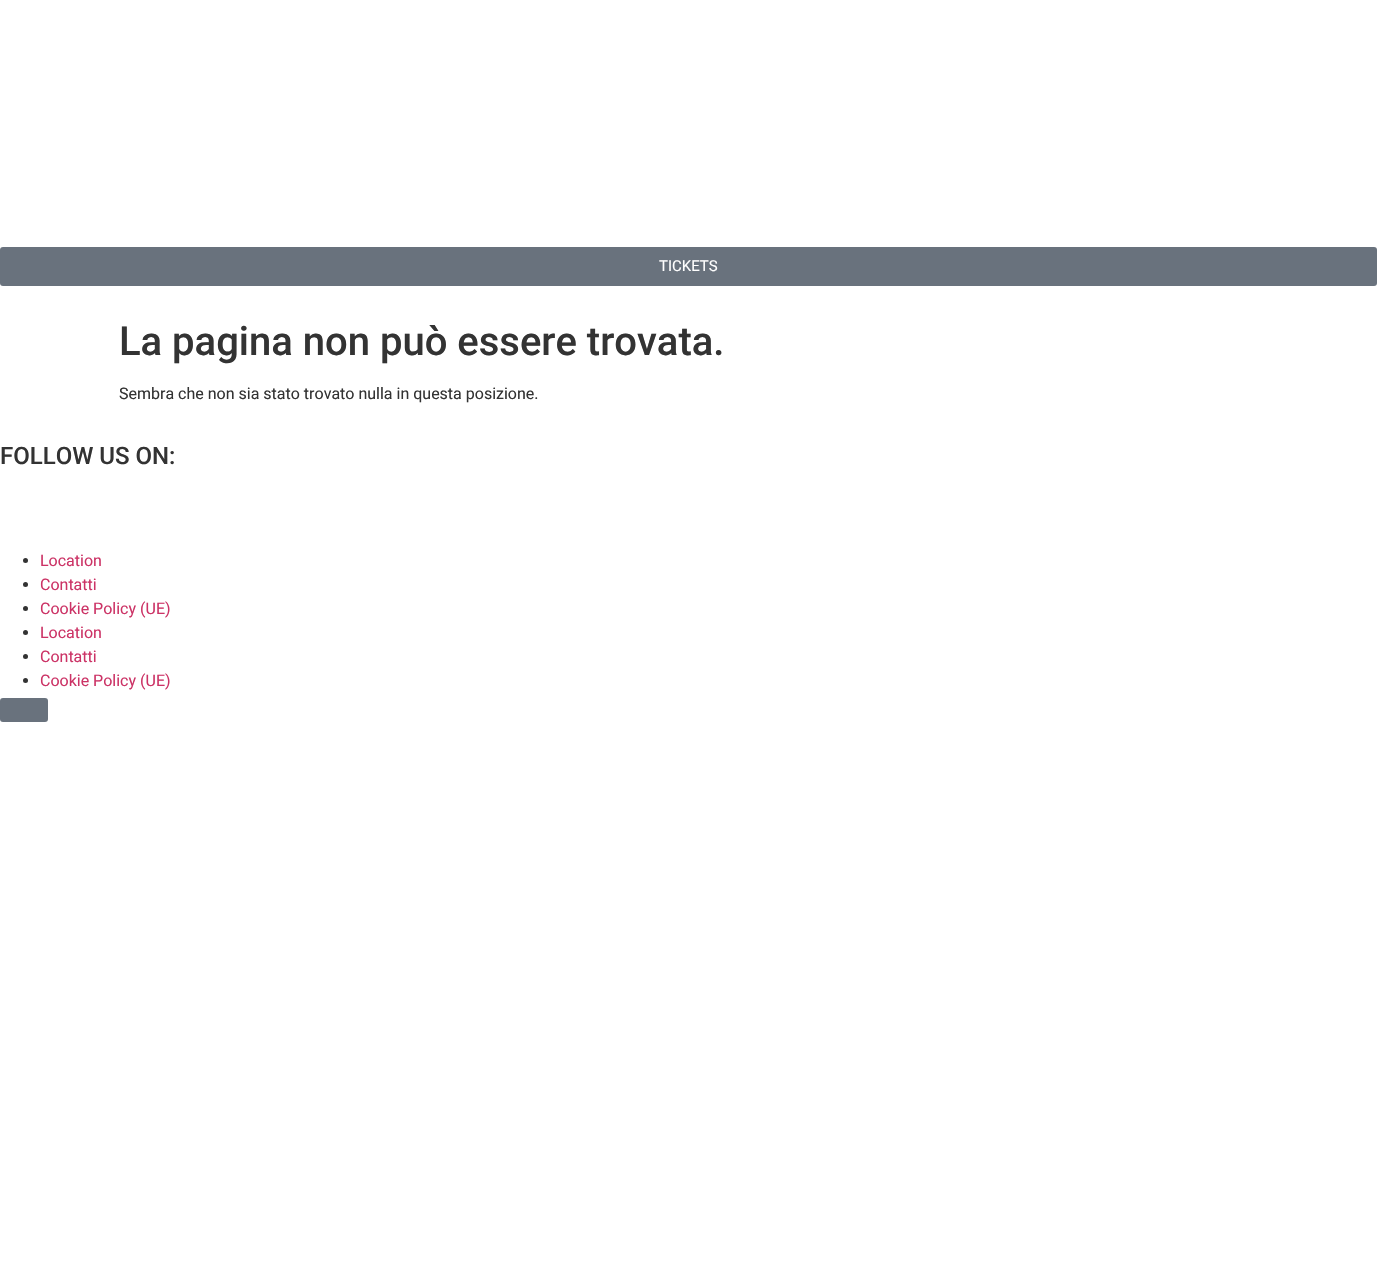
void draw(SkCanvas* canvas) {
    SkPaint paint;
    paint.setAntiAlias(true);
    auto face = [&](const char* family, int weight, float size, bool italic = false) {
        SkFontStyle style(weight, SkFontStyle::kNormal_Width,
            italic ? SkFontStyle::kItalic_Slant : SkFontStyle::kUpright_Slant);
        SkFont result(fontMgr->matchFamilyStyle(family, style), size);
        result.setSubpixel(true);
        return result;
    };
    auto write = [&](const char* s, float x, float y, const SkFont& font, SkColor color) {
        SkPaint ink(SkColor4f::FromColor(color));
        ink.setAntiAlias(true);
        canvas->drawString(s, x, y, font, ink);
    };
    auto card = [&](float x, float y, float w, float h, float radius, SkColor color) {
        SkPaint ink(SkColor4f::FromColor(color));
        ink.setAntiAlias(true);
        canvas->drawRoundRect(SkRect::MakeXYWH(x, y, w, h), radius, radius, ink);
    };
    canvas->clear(SK_ColorWHITE);
    card(0, 247, 1377, 39, 3, SkColorSetRGB(105, 114, 125));
    auto kFont1 = face("Roboto", 400, 15);
    write("TICKETS", 659, 271, kFont1, SK_ColorWHITE);
    auto kFont2 = face("Roboto", 500, 40);
    write("La pagina non può essere trovata.", 119, 355, kFont2, SkColorSetRGB(51, 51, 51));
    auto kFont3 = face("Roboto", 400, 16);
    write("Sembra che non sia stato trovato nulla in questa posizione.", 119, 399, kFont3, SkColorSetRGB(51, 51, 51));
    auto kFont4 = face("Roboto", 500, 24);
    write("FOLLOW US ON:", 0, 464, kFont4, SkColorSetRGB(51, 51, 51));
    paint.setColor(SkColorSetRGB(51, 51, 51));
    canvas->drawCircle(25.5f, 560.5f, 2.5f, paint);
    write("Location", 40, 566, kFont3, SkColorSetRGB(204, 51, 102));
    canvas->drawCircle(25.5f, 584.5f, 2.5f, paint);
    write("Contatti", 40, 590, kFont3, SkColorSetRGB(204, 51, 102));
    canvas->drawCircle(25.5f, 608.5f, 2.5f, paint);
    write("Cookie Policy (UE)", 40, 614, kFont3, SkColorSetRGB(204, 51, 102));
    canvas->drawCircle(25.5f, 632.5f, 2.5f, paint);
    write("Location", 40, 638, kFont3, SkColorSetRGB(204, 51, 102));
    canvas->drawCircle(25.5f, 656.5f, 2.5f, paint);
    write("Contatti", 40, 662, kFont3, SkColorSetRGB(204, 51, 102));
    canvas->drawCircle(25.5f, 680.5f, 2.5f, paint);
    write("Cookie Policy (UE)", 40, 686, kFont3, SkColorSetRGB(204, 51, 102));
    card(0, 698, 48, 24, 3, SkColorSetRGB(105, 114, 125));
}
